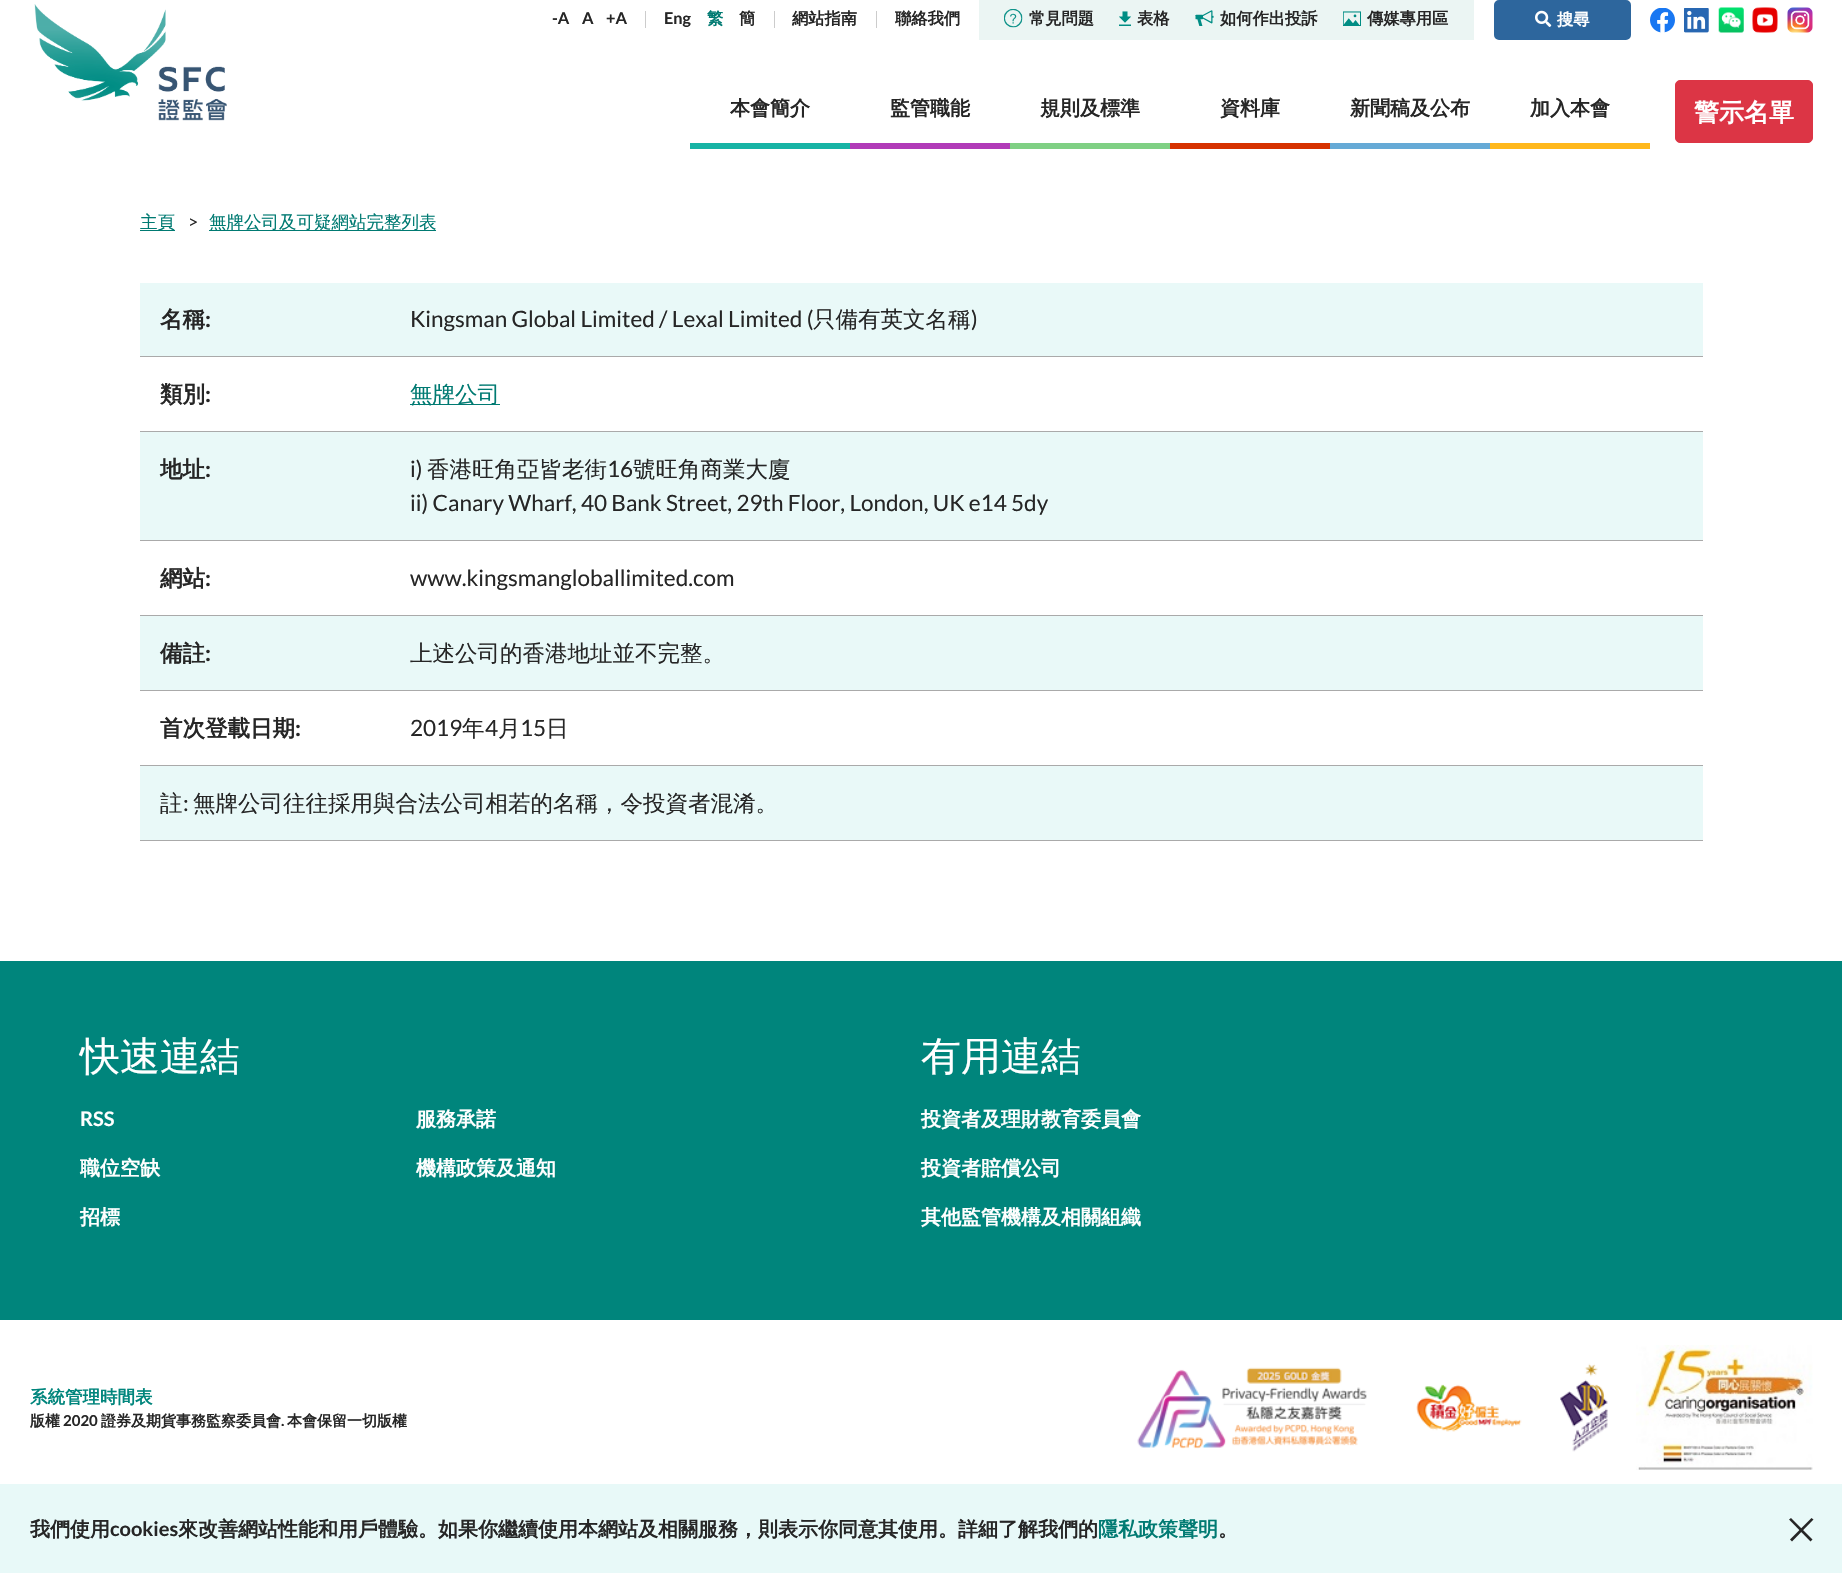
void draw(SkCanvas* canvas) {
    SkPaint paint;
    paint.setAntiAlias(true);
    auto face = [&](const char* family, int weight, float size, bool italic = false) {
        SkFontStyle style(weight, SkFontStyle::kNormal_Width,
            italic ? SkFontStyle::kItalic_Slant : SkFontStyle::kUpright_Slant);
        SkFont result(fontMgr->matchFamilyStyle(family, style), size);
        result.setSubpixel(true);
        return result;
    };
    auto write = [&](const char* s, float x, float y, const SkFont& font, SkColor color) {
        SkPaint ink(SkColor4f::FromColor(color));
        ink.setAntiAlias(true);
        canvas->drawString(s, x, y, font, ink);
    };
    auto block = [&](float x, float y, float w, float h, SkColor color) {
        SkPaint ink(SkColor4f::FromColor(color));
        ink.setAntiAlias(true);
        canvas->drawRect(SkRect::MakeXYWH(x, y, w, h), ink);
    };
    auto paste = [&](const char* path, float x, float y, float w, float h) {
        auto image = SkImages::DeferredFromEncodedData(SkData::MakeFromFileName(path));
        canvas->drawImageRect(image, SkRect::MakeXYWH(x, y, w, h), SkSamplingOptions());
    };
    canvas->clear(SK_ColorWHITE);
    paste("pic1.png", 34, 4, 193, 117);
    auto kFont1 = face("Lato", 700, 16.25f);
    write("-A", 552, 24, kFont1, SkColorSetRGB(38, 38, 38));
    write("A", 582, 24, kFont1, SkColorSetRGB(38, 38, 38));
    write("+A", 606, 24, kFont1, SkColorSetRGB(38, 38, 38));
    block(645, 11, 1, 17, SkColorSetRGB(204, 204, 204));
    write("Eng", 664, 24, kFont1, SkColorSetRGB(38, 38, 38));
    auto kFont2 = face("WenQuanYi Zen Hei", 700, 16.25f);
    write("繁", 707, 24, kFont2, SkColorSetRGB(0, 122, 114));
    write("簡", 739, 24, kFont2, SkColorSetRGB(38, 38, 38));
    block(774, 11, 1, 17, SkColorSetRGB(204, 204, 204));
    write("網站指南", 792, 24, kFont2, SkColorSetRGB(38, 38, 38));
    block(876, 11, 1, 17, SkColorSetRGB(204, 204, 204));
    write("聯絡我們", 895, 24, kFont2, SkColorSetRGB(38, 38, 38));
    block(979, 0, 495, 40, SkColorSetRGB(235, 245, 243));
    paste("pic2.png", 1004, 9, 19, 19);
    write("常見問題", 1029, 24, kFont2, SkColorSetRGB(38, 38, 38));
    paste("pic3.png", 1119, 11, 12, 15);
    write("表格", 1137, 24, kFont2, SkColorSetRGB(38, 38, 38));
    paste("pic4.png", 1195, 10, 19, 16);
    write("如何作出投訴", 1220, 24, kFont2, SkColorSetRGB(38, 38, 38));
    paste("pic5.png", 1343, 11, 18, 15);
    write("傳媒專用區", 1367, 24, kFont2, SkColorSetRGB(38, 38, 38));
    paint.setColor(SkColorSetRGB(45, 102, 157));
    canvas->drawRoundRect(SkRect::MakeXYWH(1495.5f, 1.5f, 134, 37), 3.5f, 3.5f, paint);
    paint.setStyle(SkPaint::kStroke_Style);
    paint.setStrokeWidth(3);
    canvas->drawRoundRect(SkRect::MakeXYWH(1495.5f, 1.5f, 134, 37), 3.5f, 3.5f, paint);
    paste("pic6.png", 1535, 10, 17, 17);
    write("搜尋", 1557, 25, kFont2, SK_ColorWHITE);
    paste("pic7.png", 1650, 8, 25, 25);
    paste("pic8.png", 1684, 8, 25, 25);
    paste("pic9.png", 1718, 7, 26, 26);
    paste("pic10.png", 1752, 7, 26, 26);
    paste("pic11.png", 1787, 7, 26, 26);
    block(690, 143, 160, 6, SkColorSetRGB(23, 180, 165));
    auto kFont3 = face("WenQuanYi Zen Hei", 700, 20);
    write("本會簡介", 730, 115, kFont3, SkColorSetRGB(38, 38, 38));
    block(850, 143, 160, 6, SkColorSetRGB(177, 59, 184));
    write("監管職能", 890, 115, kFont3, SkColorSetRGB(38, 38, 38));
    block(1010, 143, 160, 6, SkColorSetRGB(127, 208, 132));
    write("規則及標準", 1040, 115, kFont3, SkColorSetRGB(38, 38, 38));
    block(1170, 143, 160, 6, SkColorSetRGB(214, 50, 0));
    write("資料庫", 1220, 115, kFont3, SkColorSetRGB(38, 38, 38));
    block(1330, 143, 160, 6, SkColorSetRGB(102, 170, 214));
    write("新聞稿及公布", 1350, 115, kFont3, SkColorSetRGB(38, 38, 38));
    block(1490, 143, 160, 6, SkColorSetRGB(255, 184, 29));
    write("加入本會", 1530, 115, kFont3, SkColorSetRGB(38, 38, 38));
    paint.setStyle(SkPaint::kFill_Style);
    paint.setColor(SkColorSetRGB(220, 53, 69));
    canvas->drawRoundRect(SkRect::MakeXYWH(1675.5f, 80.5f, 137, 62), 4.5f, 4.5f, paint);
    paint.setStyle(SkPaint::kStroke_Style);
    paint.setStrokeWidth(1);
    canvas->drawRoundRect(SkRect::MakeXYWH(1675.5f, 80.5f, 137, 62), 4.5f, 4.5f, paint);
    auto kFont4 = face("WenQuanYi Zen Hei", 700, 25);
    write("警示名單", 1694, 121, kFont4, SK_ColorWHITE);
    block(140, 230, 35, 1, SkColorSetRGB(0, 122, 114));
    auto kFont5 = face("WenQuanYi Zen Hei", 500, 17.5f);
    write("主頁", 140, 228, kFont5, SkColorSetRGB(0, 122, 114));
    auto kFont6 = face("Lato", 400, 17.5f);
    write(">", 188, 228, kFont6, SkColorSetRGB(38, 38, 38));
    block(209, 230, 227, 1, SkColorSetRGB(0, 122, 114));
    write("無牌公司及可疑網站完整列表", 209, 228, kFont5, SkColorSetRGB(0, 122, 114));
    block(140, 283, 1563, 73, SkColorSetRGB(233, 249, 248));
    auto kFont7 = face("WenQuanYi Zen Hei", 700, 22.5f);
    write("名稱", 160, 327, kFont7, SkColorSetRGB(38, 38, 38));
    auto kFont8 = face("Lato", 700, 22.5f);
    write(":", 205, 327, kFont8, SkColorSetRGB(38, 38, 38));
    block(140, 356, 1563, 1, SkColorSetRGB(170, 170, 170));
    auto kFont9 = face("Lato", 400, 22.5f);
    write("Kingsman Global Limited / Lexal Limited (", 410, 327, kFont9, SkColorSetRGB(38, 38, 38));
    auto kFont10 = face("WenQuanYi Zen Hei", 500, 22.5f);
    write("只備有英文名稱", 813, 327, kFont10, SkColorSetRGB(38, 38, 38));
    write(")", 971, 327, kFont9, SkColorSetRGB(38, 38, 38));
    write("類別", 160, 402, kFont7, SkColorSetRGB(38, 38, 38));
    write(":", 205, 402, kFont8, SkColorSetRGB(38, 38, 38));
    block(140, 431, 1563, 1, SkColorSetRGB(170, 170, 170));
    block(410, 404, 90, 1, SkColorSetRGB(0, 122, 114));
    write("無牌公司", 410, 402, kFont10, SkColorSetRGB(0, 122, 114));
    block(140, 432, 1563, 108, SkColorSetRGB(233, 249, 248));
    write("地址", 160, 477, kFont7, SkColorSetRGB(38, 38, 38));
    write(":", 205, 477, kFont8, SkColorSetRGB(38, 38, 38));
    block(140, 540, 1563, 1, SkColorSetRGB(170, 170, 170));
    write("i)", 410, 477, kFont9, SkColorSetRGB(38, 38, 38));
    write("香港旺角亞皆老街", 427, 477, kFont10, SkColorSetRGB(38, 38, 38));
    write("16", 607, 477, kFont9, SkColorSetRGB(38, 38, 38));
    write("號旺角商業大廈", 633, 477, kFont10, SkColorSetRGB(38, 38, 38));
    write("ii) Canary Wharf, 40 Bank Street, 29th Floor, London, UK e14 5dy", 410, 511, kFont9, SkColorSetRGB(38, 38, 38));
    write("網站", 160, 586, kFont7, SkColorSetRGB(38, 38, 38));
    write(":", 205, 586, kFont8, SkColorSetRGB(38, 38, 38));
    block(140, 615, 1563, 1, SkColorSetRGB(170, 170, 170));
    write("www.kingsmangloballimited.com", 410, 586, kFont9, SkColorSetRGB(38, 38, 38));
    block(140, 616, 1563, 74, SkColorSetRGB(233, 249, 248));
    write("備註", 160, 661, kFont7, SkColorSetRGB(38, 38, 38));
    write(":", 205, 661, kFont8, SkColorSetRGB(38, 38, 38));
    block(140, 690, 1563, 1, SkColorSetRGB(170, 170, 170));
    write("上述公司的香港地址並不完整。", 410, 661, kFont10, SkColorSetRGB(38, 38, 38));
    write("首次登載日期", 160, 736, kFont7, SkColorSetRGB(38, 38, 38));
    write(":", 295, 736, kFont8, SkColorSetRGB(38, 38, 38));
    block(140, 765, 1563, 1, SkColorSetRGB(170, 170, 170));
    write("2019", 410, 736, kFont9, SkColorSetRGB(38, 38, 38));
    write("年", 462, 736, kFont10, SkColorSetRGB(38, 38, 38));
    write("4", 485, 736, kFont9, SkColorSetRGB(38, 38, 38));
    write("月", 498, 736, kFont10, SkColorSetRGB(38, 38, 38));
    write("15", 520, 736, kFont9, SkColorSetRGB(38, 38, 38));
    write("日", 546, 736, kFont10, SkColorSetRGB(38, 38, 38));
    block(140, 766, 1563, 74, SkColorSetRGB(233, 249, 248));
    block(140, 840, 1563, 1, SkColorSetRGB(170, 170, 170));
    write("註", 160, 811, kFont10, SkColorSetRGB(38, 38, 38));
    write(":", 183, 811, kFont9, SkColorSetRGB(38, 38, 38));
    write("無牌公司往往採用與合法公司相若的名稱，令投資者混淆。", 193, 811, kFont10, SkColorSetRGB(38, 38, 38));
    block(0, 961, 1842, 359, SkColorSetRGB(0, 133, 124));
    auto kFont11 = face("WenQuanYi Zen Hei", 500, 40);
    write("快速連結", 80, 1070, kFont11, SK_ColorWHITE);
    auto kFont12 = face("Lato", 700, 20);
    write("RSS", 80, 1126, kFont12, SK_ColorWHITE);
    write("服務承諾", 416, 1126, kFont3, SK_ColorWHITE);
    write("職位空缺", 80, 1175, kFont3, SK_ColorWHITE);
    write("機構政策及通知", 416, 1175, kFont3, SK_ColorWHITE);
    write("招標", 80, 1224, kFont3, SK_ColorWHITE);
    write("有用連結", 921, 1070, kFont11, SK_ColorWHITE);
    write("投資者及理財教育委員會", 921, 1126, kFont3, SK_ColorWHITE);
    write("投資者賠償公司", 921, 1175, kFont3, SK_ColorWHITE);
    write("其他監管機構及相關組織", 921, 1224, kFont3, SK_ColorWHITE);
    auto kFont13 = face("WenQuanYi Zen Hei", 700, 17.5f);
    write("系統管理時間表", 30, 1403, kFont13, SkColorSetRGB(0, 133, 124));
    auto kFont14 = face("WenQuanYi Zen Hei", 700, 15);
    write("版權", 30, 1426, kFont14, SkColorSetRGB(38, 38, 38));
    auto kFont15 = face("Lato", 700, 15);
    write("2020", 63, 1426, kFont15, SkColorSetRGB(38, 38, 38));
    write("證券及期貨事務監察委員會", 101, 1426, kFont14, SkColorSetRGB(38, 38, 38));
    write(".", 281, 1426, kFont15, SkColorSetRGB(38, 38, 38));
    write("本會保留一切版權", 287, 1426, kFont14, SkColorSetRGB(38, 38, 38));
    paste("pic12.png", 1137, 1367, 230, 82);
    paste("pic13.png", 1416, 1384, 106, 48);
    paste("pic14.png", 1560, 1363, 48, 89);
    paste("pic15.png", 1636, 1345, 177, 125);
    block(0, 1484, 1842, 89, SkColorSetRGB(232, 249, 248));
    write("我們使用", 30, 1536, kFont3, SkColorSetRGB(38, 38, 38));
    write("cookies", 110, 1536, kFont12, SkColorSetRGB(38, 38, 38));
    write("來改善網站性能和用戶體驗。如果你繼續使用本網站及相關服務，則表示你同意其使用。詳細了解我們的", 178, 1536, kFont3, SkColorSetRGB(38, 38, 38));
    write("隱私政策聲明", 1098, 1536, kFont3, SkColorSetRGB(0, 122, 114));
    write("。", 1218, 1536, kFont3, SkColorSetRGB(38, 38, 38));
    paint.setStyle(SkPaint::kFill_Style);
    paint.setColor(SkColorSetRGB(38, 38, 38));
    canvas->drawPath(SkPathBuilder().moveTo(1791, 1518).lineTo(1812.5f, 1539.5f).lineTo(1810.5f, 1541.5f).lineTo(1789, 1519.5f).close().detach(), paint);
    canvas->drawPath(SkPathBuilder().moveTo(1790, 1539.5f).lineTo(1811.5f, 1518).lineTo(1813.5f, 1519.5f).lineTo(1792, 1541.5f).close().detach(), paint);
}
